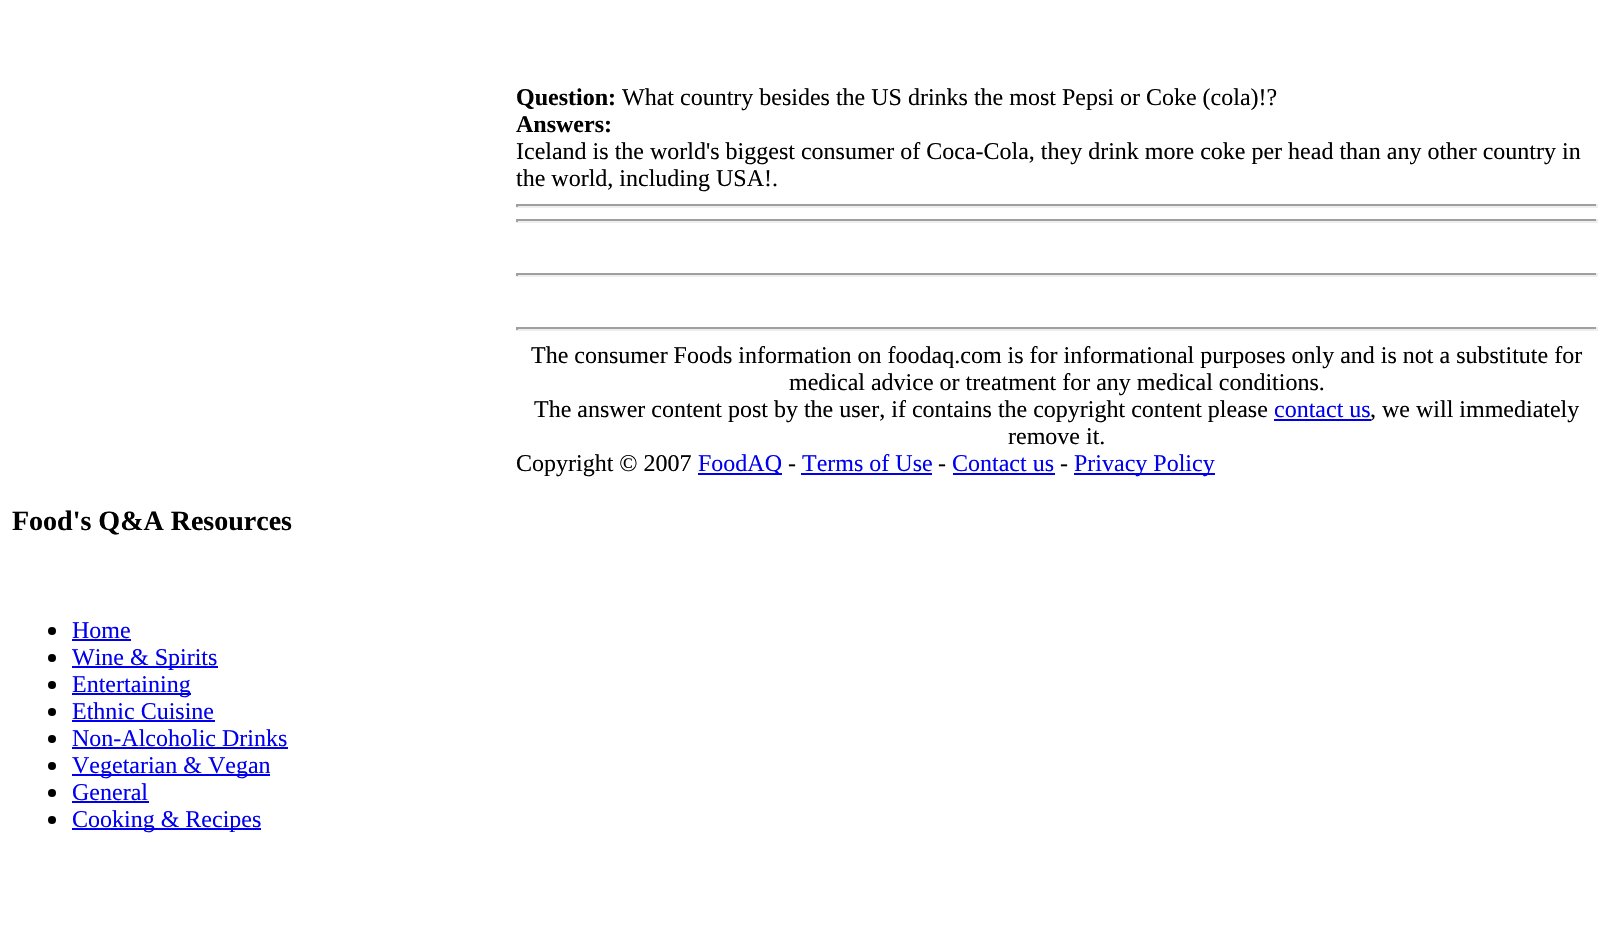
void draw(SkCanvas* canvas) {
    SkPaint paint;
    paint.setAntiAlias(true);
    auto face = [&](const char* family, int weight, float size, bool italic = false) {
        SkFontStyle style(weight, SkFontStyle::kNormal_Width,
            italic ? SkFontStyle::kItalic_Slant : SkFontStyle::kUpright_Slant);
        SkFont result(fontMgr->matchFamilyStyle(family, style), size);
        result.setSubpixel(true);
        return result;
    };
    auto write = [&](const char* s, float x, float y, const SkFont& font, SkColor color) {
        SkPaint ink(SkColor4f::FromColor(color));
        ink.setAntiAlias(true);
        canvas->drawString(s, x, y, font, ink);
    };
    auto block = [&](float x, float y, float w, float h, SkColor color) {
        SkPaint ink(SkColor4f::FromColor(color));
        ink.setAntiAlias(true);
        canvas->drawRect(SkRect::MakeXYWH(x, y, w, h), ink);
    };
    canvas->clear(SK_ColorWHITE);
    auto kFont1 = face("Liberation Serif", 700, 24);
    write("Question:", 516, 105, kFont1, SK_ColorBLACK);
    auto kFont2 = face("Liberation Serif", 400, 24);
    write("What country besides the US drinks the most Pepsi or Coke (cola)!?", 622, 105, kFont2, SK_ColorBLACK);
    write("Answers:", 516, 132, kFont1, SK_ColorBLACK);
    write("Iceland is the world's biggest consumer of Coca-Cola, they drink more coke per head than any other country in", 516, 159, kFont2, SK_ColorBLACK);
    write("the world, including USA!.", 516, 186, kFont2, SK_ColorBLACK);
    block(516, 204, 1082, 2, SkColorSetRGB(159, 159, 159));
    block(1596, 204, 2, 3, SkColorSetRGB(238, 238, 238));
    block(516, 206, 1082, 2, SkColorSetRGB(238, 238, 238));
    block(516, 204, 2, 3, SkColorSetRGB(159, 159, 159));
    block(516, 219, 1082, 2, SkColorSetRGB(159, 159, 159));
    block(1596, 219, 2, 3, SkColorSetRGB(238, 238, 238));
    block(516, 221, 1082, 2, SkColorSetRGB(238, 238, 238));
    block(516, 219, 2, 3, SkColorSetRGB(159, 159, 159));
    block(516, 273, 1082, 2, SkColorSetRGB(159, 159, 159));
    block(1596, 273, 2, 3, SkColorSetRGB(238, 238, 238));
    block(516, 275, 1082, 2, SkColorSetRGB(238, 238, 238));
    block(516, 273, 2, 3, SkColorSetRGB(159, 159, 159));
    block(516, 327, 1082, 2, SkColorSetRGB(159, 159, 159));
    block(1596, 327, 2, 3, SkColorSetRGB(238, 238, 238));
    block(516, 329, 1082, 2, SkColorSetRGB(238, 238, 238));
    block(516, 327, 2, 3, SkColorSetRGB(159, 159, 159));
    write("The consumer Foods information on foodaq.com is for informational purposes only and is not a substitute for", 531, 363, kFont2, SK_ColorBLACK);
    write("medical advice or treatment for any medical conditions.", 789, 390, kFont2, SK_ColorBLACK);
    write("The answer content post by the user, if contains the copyright content please", 534, 417, kFont2, SK_ColorBLACK);
    write("contact us", 1274, 417, kFont2, SkColorSetRGB(0, 0, 238));
    block(1274, 419, 97, 2, SkColorSetRGB(0, 0, 238));
    write(", we will immediately", 1370, 417, kFont2, SK_ColorBLACK);
    write("remove it.", 1008, 444, kFont2, SK_ColorBLACK);
    write("Copyright © 2007", 516, 471, kFont2, SK_ColorBLACK);
    block(698, 473, 84, 2, SkColorSetRGB(0, 0, 238));
    write("FoodAQ", 698, 471, kFont2, SkColorSetRGB(0, 0, 238));
    write("-", 788, 471, kFont2, SK_ColorBLACK);
    write("Terms of Use", 802, 471, kFont2, SkColorSetRGB(0, 0, 238));
    block(801, 473, 131, 2, SkColorSetRGB(0, 0, 238));
    write("-", 938, 471, kFont2, SK_ColorBLACK);
    write("Contact us", 952, 471, kFont2, SkColorSetRGB(0, 0, 238));
    block(953, 473, 102, 2, SkColorSetRGB(0, 0, 238));
    write("-", 1060, 471, kFont2, SK_ColorBLACK);
    block(1074, 473, 141, 2, SkColorSetRGB(0, 0, 238));
    write("Privacy Policy", 1074, 471, kFont2, SkColorSetRGB(0, 0, 238));
    auto kFont3 = face("Liberation Serif", 700, 28);
    write("Food's Q&A Resources", 12, 530, kFont3, SK_ColorBLACK);
    paint.setColor(SK_ColorBLACK);
    canvas->drawCircle(52, 631, 4, paint);
    write("Home", 72, 638, kFont2, SkColorSetRGB(0, 0, 238));
    block(72, 639, 59, 2, SkColorSetRGB(0, 0, 238));
    canvas->drawCircle(52, 658, 4, paint);
    block(72, 666, 146, 2, SkColorSetRGB(0, 0, 238));
    write("Wine & Spirits", 72, 665, kFont2, SkColorSetRGB(0, 0, 238));
    canvas->drawCircle(52, 685, 4, paint);
    block(72, 693, 119, 2, SkColorSetRGB(0, 0, 238));
    write("Entertaining", 72, 692, kFont2, SkColorSetRGB(0, 0, 238));
    canvas->drawCircle(52, 712, 4, paint);
    write("Ethnic Cuisine", 72, 719, kFont2, SkColorSetRGB(0, 0, 238));
    block(72, 720, 143, 2, SkColorSetRGB(0, 0, 238));
    canvas->drawCircle(52, 739, 4, paint);
    write("Non-Alcoholic Drinks", 72, 746, kFont2, SkColorSetRGB(0, 0, 238));
    block(72, 747, 216, 2, SkColorSetRGB(0, 0, 238));
    canvas->drawCircle(52, 766, 4, paint);
    block(72, 774, 198, 2, SkColorSetRGB(0, 0, 238));
    write("Vegetarian & Vegan", 72, 773, kFont2, SkColorSetRGB(0, 0, 238));
    canvas->drawCircle(52, 793, 4, paint);
    write("General", 72, 800, kFont2, SkColorSetRGB(0, 0, 238));
    block(72, 801, 77, 2, SkColorSetRGB(0, 0, 238));
    canvas->drawCircle(52, 820, 4, paint);
    block(72, 828, 189, 2, SkColorSetRGB(0, 0, 238));
    write("Cooking & Recipes", 72, 827, kFont2, SkColorSetRGB(0, 0, 238));
}
